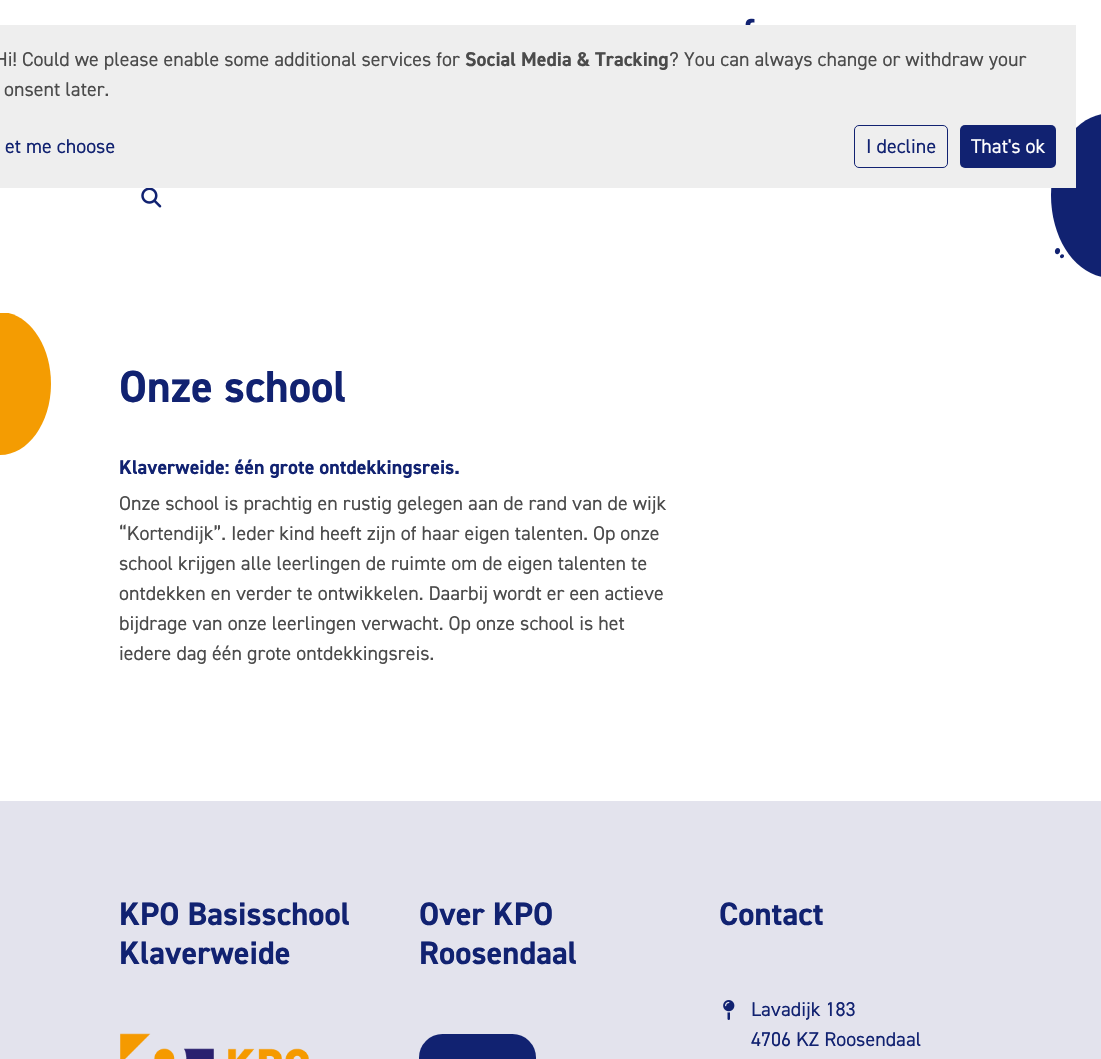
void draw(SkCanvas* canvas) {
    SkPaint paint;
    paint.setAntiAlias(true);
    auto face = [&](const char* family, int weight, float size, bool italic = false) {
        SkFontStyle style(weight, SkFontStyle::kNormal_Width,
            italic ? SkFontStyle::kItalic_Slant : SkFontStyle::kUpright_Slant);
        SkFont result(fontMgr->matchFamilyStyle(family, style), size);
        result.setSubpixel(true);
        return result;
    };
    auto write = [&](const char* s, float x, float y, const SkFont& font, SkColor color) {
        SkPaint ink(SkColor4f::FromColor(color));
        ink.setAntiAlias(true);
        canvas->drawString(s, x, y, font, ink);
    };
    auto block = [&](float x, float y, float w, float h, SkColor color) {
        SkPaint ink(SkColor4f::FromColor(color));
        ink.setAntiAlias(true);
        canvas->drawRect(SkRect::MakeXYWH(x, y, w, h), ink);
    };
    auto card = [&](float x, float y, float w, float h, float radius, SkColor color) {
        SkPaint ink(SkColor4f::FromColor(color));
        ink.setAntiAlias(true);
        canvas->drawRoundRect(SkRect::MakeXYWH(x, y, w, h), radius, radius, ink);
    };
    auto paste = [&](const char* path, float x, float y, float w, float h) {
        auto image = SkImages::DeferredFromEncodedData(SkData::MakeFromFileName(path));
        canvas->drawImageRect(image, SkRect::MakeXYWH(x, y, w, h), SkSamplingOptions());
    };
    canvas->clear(SK_ColorWHITE);
    paste("pic1.png", 745, 18, 10, 7);
    paint.setColor(SkColorSetRGB(17, 34, 113));
    canvas->drawPath(SkPathBuilder().moveTo(1055, 250.5f).cubicTo(1056, 246.5f, 1061, 247.5f, 1060, 251.5f).cubicTo(1059, 256, 1054, 254.5f, 1055, 250.5f).close().detach(), paint);
    canvas->drawPath(SkPathBuilder().moveTo(1060, 256).cubicTo(1061, 253.5f, 1064.5f, 254, 1064, 256.5f).cubicTo(1063, 259, 1059.5f, 258.5f, 1060, 256).close().detach(), paint);
    canvas->drawPath(SkPathBuilder().moveTo(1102, 114).cubicTo(1073, 119, 1051, 154, 1051, 195).cubicTo(1051, 237, 1073, 271, 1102, 277).close().detach(), paint);
    block(0, 25, 1076, 163, SkColorSetRGB(238, 238, 238));
    auto kFont1 = face("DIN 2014", 400, 20);
    write("Hi! Could we please enable some additional services for", -5, 66, kFont1, SkColorSetRGB(75, 75, 75));
    auto kFont2 = face("DIN 2014", 700, 20);
    write("Social Media & Tracking", 465, 66, kFont2, SkColorSetRGB(75, 75, 75));
    write("? You can always change or withdraw your", 669, 66, kFont1, SkColorSetRGB(75, 75, 75));
    write("onsent later.", 4, 96, kFont1, SkColorSetRGB(75, 75, 75));
    write("et me choose", 5, 153, kFont1, SkColorSetRGB(17, 34, 113));
    paint.setStyle(SkPaint::kStroke_Style);
    paint.setStrokeWidth(1);
    canvas->drawRoundRect(SkRect::MakeXYWH(854.5f, 125.5f, 93, 42), 4.5f, 4.5f, paint);
    write("I decline", 866, 153, kFont1, SkColorSetRGB(17, 34, 113));
    card(960, 125, 96, 43, 5, SkColorSetRGB(17, 34, 113));
    write("That's ok", 971, 153, kFont1, SK_ColorWHITE);
    paste("pic2.png", 141, 188, 21, 20);
    canvas->save();
    canvas->clipRect(SkRect::MakeXYWH(0, 313, 51, 142));
    paint.setStyle(SkPaint::kFill_Style);
    paint.setColor(SkColorSetRGB(244, 156, 2));
    canvas->drawPath(SkPathBuilder().moveTo(0, 312).lineTo(0, 455).cubicTo(28, 455, 51, 423, 51, 384).cubicTo(51, 344, 28, 312, 0, 312).close().detach(), paint);
    canvas->restore();
    auto kFont3 = face("DIN 2014", 700, 45);
    write("Onze school", 119, 402, kFont3, SkColorSetRGB(17, 34, 113));
    write("Klaverweide: één grote ontdekkingsreis.", 119, 474, kFont2, SkColorSetRGB(17, 34, 113));
    write("Onze school is prachtig en rustig gelegen aan de rand van de wijk", 119, 510, kFont1, SkColorSetRGB(75, 75, 75));
    write("“Kortendijk”. Ieder kind heeft zijn of haar eigen talenten. Op onze", 119, 540, kFont1, SkColorSetRGB(75, 75, 75));
    write("school krijgen alle leerlingen de ruimte om de eigen talenten te", 119, 570, kFont1, SkColorSetRGB(75, 75, 75));
    write("ontdekken en verder te ontwikkelen. Daarbij wordt er een actieve", 119, 600, kFont1, SkColorSetRGB(75, 75, 75));
    write("bijdrage van onze leerlingen verwacht. Op onze school is het", 119, 630, kFont1, SkColorSetRGB(75, 75, 75));
    write("iedere dag één grote ontdekkingsreis.", 119, 660, kFont1, SkColorSetRGB(75, 75, 75));
    block(0, 801, 1101, 258, SkColorSetRGB(227, 227, 237));
    auto kFont4 = face("DIN 2014", 700, 32.5f);
    write("KPO Basisschool", 119, 925, kFont4, SkColorSetRGB(17, 34, 113));
    write("Klaverweide", 119, 964, kFont4, SkColorSetRGB(17, 34, 113));
    paste("pic3.png", 120, 1033, 189, 26);
    write("Over KPO", 419, 925, kFont4, SkColorSetRGB(17, 34, 113));
    write("Roosendaal", 419, 964, kFont4, SkColorSetRGB(17, 34, 113));
    card(419, 1034, 117, 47, 23.5f, SkColorSetRGB(17, 34, 113));
    write("Contact", 719, 925, kFont4, SkColorSetRGB(17, 34, 113));
    paste("pic4.png", 723, 1000, 12, 20);
    write("Lavadijk 183", 751, 1016, kFont1, SkColorSetRGB(17, 34, 113));
    write("4706 KZ Roosendaal", 751, 1046, kFont1, SkColorSetRGB(17, 34, 113));
}
